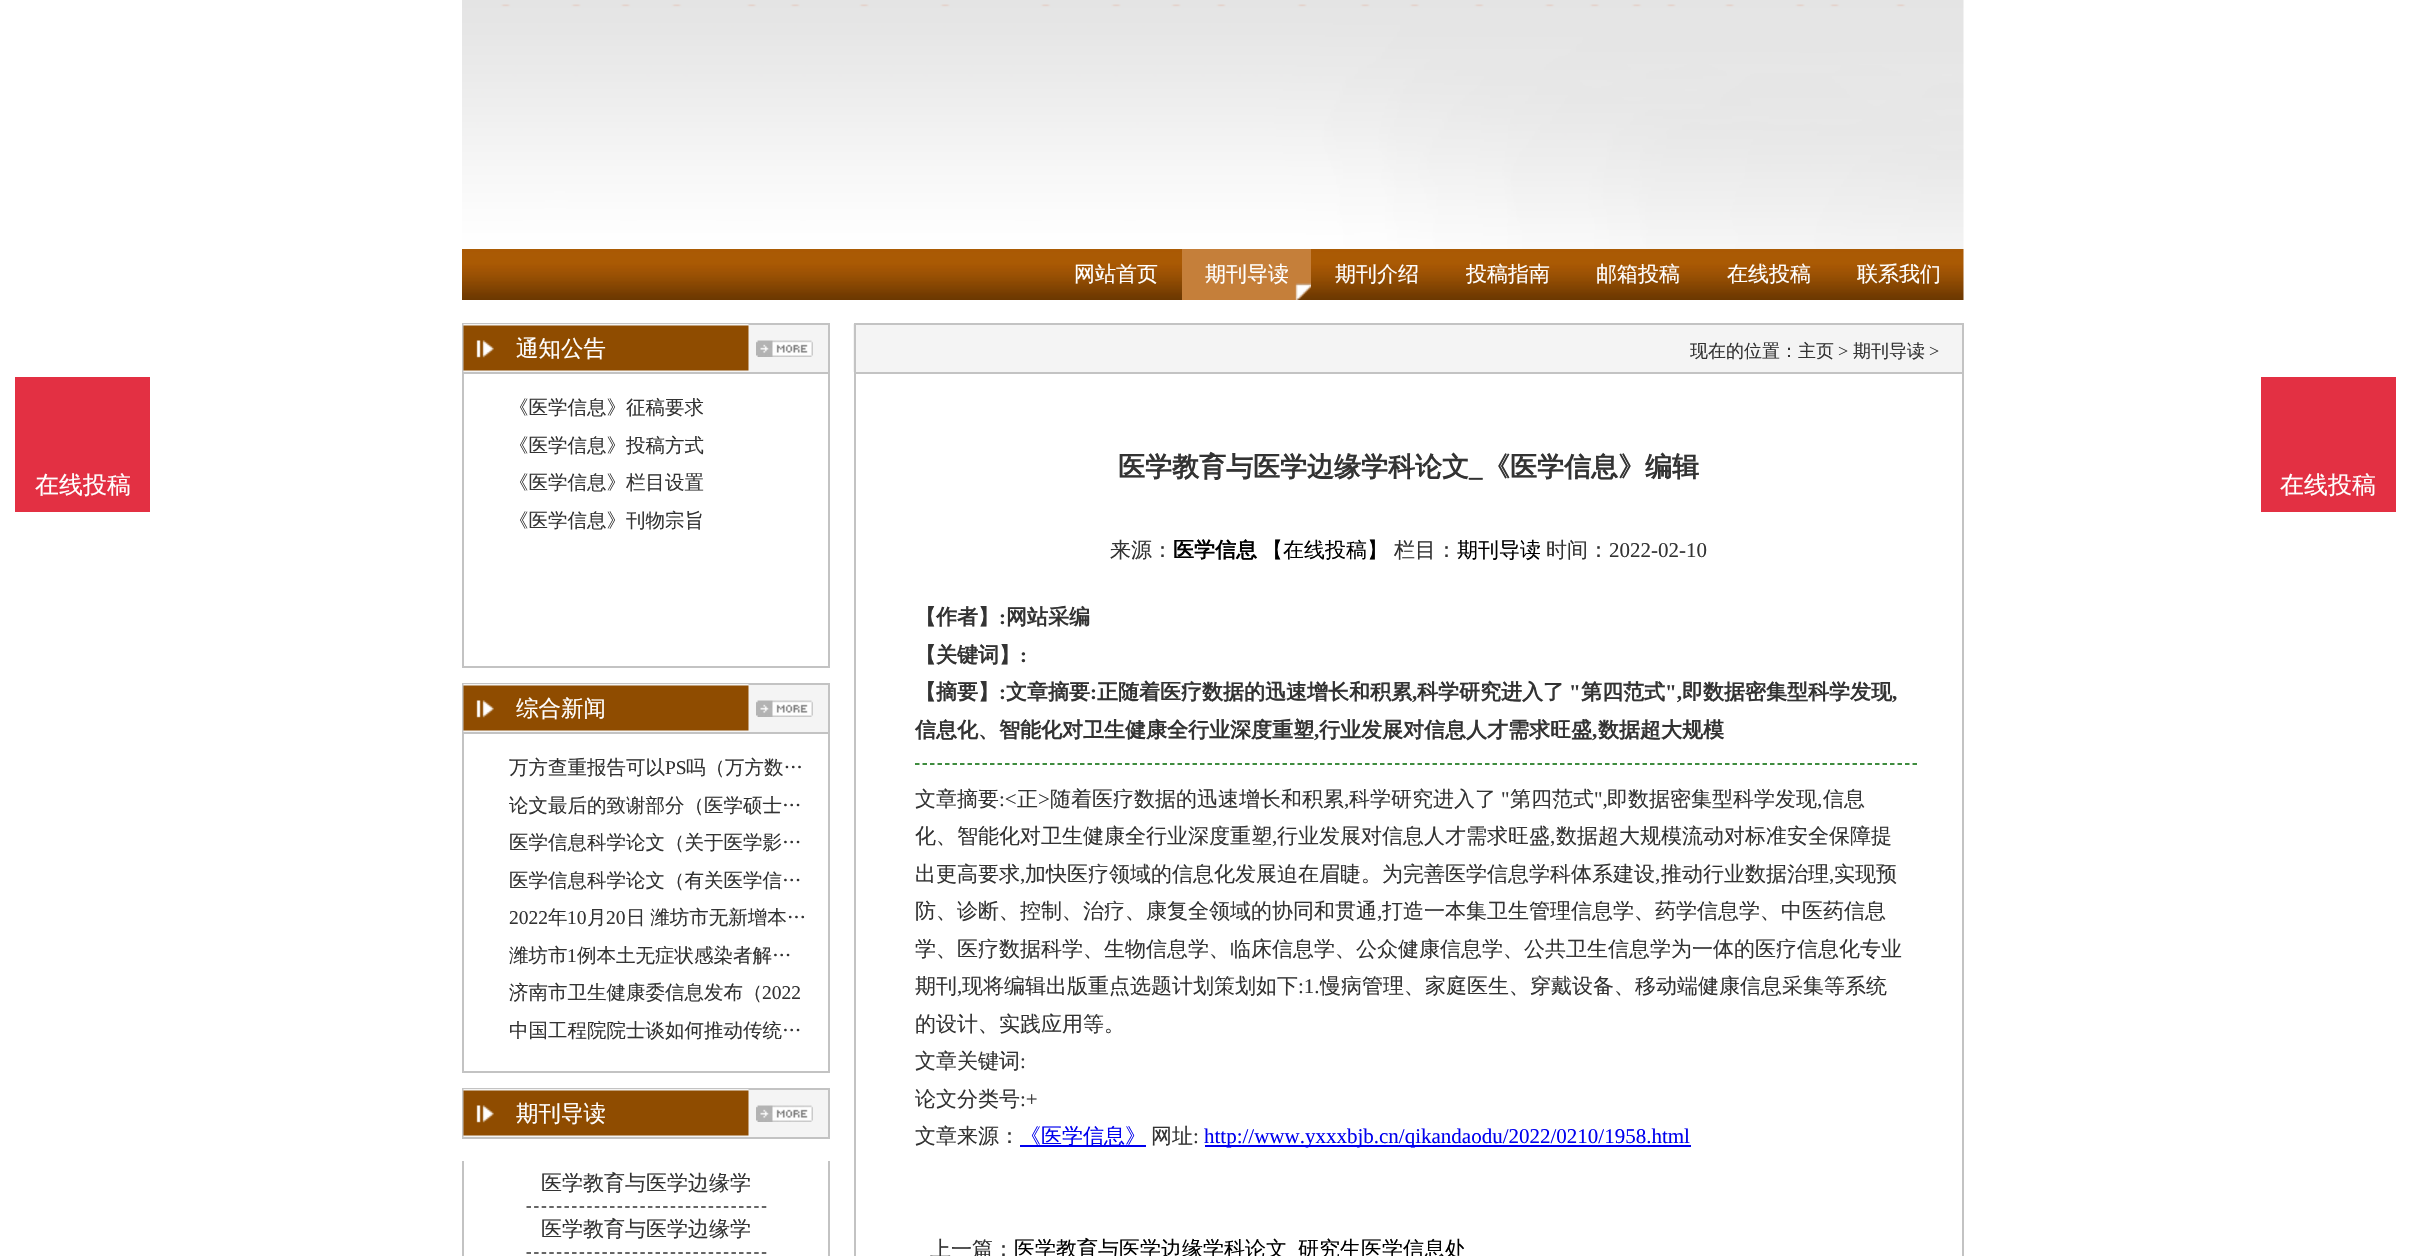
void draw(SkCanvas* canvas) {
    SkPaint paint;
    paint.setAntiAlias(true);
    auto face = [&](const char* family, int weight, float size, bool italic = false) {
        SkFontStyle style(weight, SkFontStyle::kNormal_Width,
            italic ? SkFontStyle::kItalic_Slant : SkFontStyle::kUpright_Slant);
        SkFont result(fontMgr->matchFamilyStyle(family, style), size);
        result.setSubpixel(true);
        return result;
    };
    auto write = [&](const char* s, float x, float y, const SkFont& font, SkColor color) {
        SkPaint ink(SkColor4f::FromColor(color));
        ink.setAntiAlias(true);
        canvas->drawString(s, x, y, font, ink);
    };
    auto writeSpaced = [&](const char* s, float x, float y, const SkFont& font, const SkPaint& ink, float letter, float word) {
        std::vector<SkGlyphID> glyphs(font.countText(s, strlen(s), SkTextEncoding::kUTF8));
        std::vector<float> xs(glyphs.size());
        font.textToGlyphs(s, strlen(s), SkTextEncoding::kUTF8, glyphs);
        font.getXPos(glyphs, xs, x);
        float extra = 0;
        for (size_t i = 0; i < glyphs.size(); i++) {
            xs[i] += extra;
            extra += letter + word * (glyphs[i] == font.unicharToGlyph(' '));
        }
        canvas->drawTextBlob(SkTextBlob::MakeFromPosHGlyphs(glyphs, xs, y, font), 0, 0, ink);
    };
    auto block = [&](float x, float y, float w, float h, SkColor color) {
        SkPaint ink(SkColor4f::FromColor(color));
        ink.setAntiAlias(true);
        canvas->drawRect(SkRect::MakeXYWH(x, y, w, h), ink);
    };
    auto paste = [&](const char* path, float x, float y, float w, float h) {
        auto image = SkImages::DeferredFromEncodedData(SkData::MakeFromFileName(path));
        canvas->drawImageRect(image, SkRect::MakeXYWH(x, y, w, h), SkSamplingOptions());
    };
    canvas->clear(SK_ColorWHITE);
    block(15, 377, 135, 135, SkColorSetRGB(227, 48, 67));
    auto kFont1 = face("WenQuanYi Zen Hei", 500, 24);
    write("在线投稿", 35, 493, kFont1, SK_ColorWHITE);
    paste("pic1.png", 462, 0, 1502, 249);
    paste("pic2.png", 462, 249, 1502, 51);
    auto kFont2 = face("WenQuanYi Zen Hei", 500, 21);
    write("网站首页", 1074, 281, kFont2, SK_ColorWHITE);
    paste("pic3.png", 1182, 249, 129, 51);
    write("期刊导读", 1205, 281, kFont2, SK_ColorWHITE);
    write("期刊介绍", 1335, 281, kFont2, SK_ColorWHITE);
    write("投稿指南", 1466, 281, kFont2, SK_ColorWHITE);
    write("邮箱投稿", 1596, 281, kFont2, SK_ColorWHITE);
    write("在线投稿", 1727, 281, kFont2, SK_ColorWHITE);
    write("联系我们", 1857, 281, kFont2, SK_ColorWHITE);
    block(748, 325, 80, 47, SkColorSetRGB(244, 244, 244));
    paint.setStyle(SkPaint::kStroke_Style);
    paint.setStrokeWidth(2);
    paint.setColor(SkColorSetRGB(195, 195, 195));
    canvas->drawRect(SkRect::MakeXYWH(463, 324, 366, 49), paint);
    paste("pic4.png", 463, 324, 286, 48);
    auto kFont3 = face("WenQuanYi Zen Hei", 500, 22.5f);
    write("通知公告", 516, 356, kFont3, SK_ColorWHITE);
    paste("pic5.png", 756, 340, 57, 17);
    block(828, 374, 2, 294, SkColorSetRGB(195, 195, 195));
    block(462, 666, 368, 2, SkColorSetRGB(195, 195, 195));
    block(462, 374, 2, 294, SkColorSetRGB(195, 195, 195));
    auto kFont4 = face("WenQuanYi Zen Hei", 500, 19.5f);
    write("《医学信息》征稿要求", 509, 414, kFont4, SkColorSetRGB(51, 51, 51));
    write("《医学信息》投稿方式", 509, 452, kFont4, SkColorSetRGB(51, 51, 51));
    write("《医学信息》栏目设置", 509, 489, kFont4, SkColorSetRGB(51, 51, 51));
    write("《医学信息》刊物宗旨", 509, 527, kFont4, SkColorSetRGB(51, 51, 51));
    block(748, 685, 80, 47, SkColorSetRGB(244, 244, 244));
    canvas->drawRect(SkRect::MakeXYWH(463, 684, 366, 49), paint);
    paste("pic4.png", 463, 684, 286, 48);
    write("综合新闻", 516, 716, kFont3, SK_ColorWHITE);
    paste("pic5.png", 756, 700, 57, 17);
    block(828, 734, 2, 339, SkColorSetRGB(195, 195, 195));
    block(462, 1071, 368, 2, SkColorSetRGB(195, 195, 195));
    block(462, 734, 2, 339, SkColorSetRGB(195, 195, 195));
    write("万方查重报告可以", 509, 774, kFont4, SkColorSetRGB(51, 51, 51));
    auto kFont5 = face("Liberation Serif", 400, 19.5f);
    write("PS", 665, 774, kFont5, SkColorSetRGB(51, 51, 51));
    write("吗（万方数…", 686, 774, kFont4, SkColorSetRGB(51, 51, 51));
    write("论文最后的致谢部分（医学硕士…", 509, 812, kFont4, SkColorSetRGB(51, 51, 51));
    write("医学信息科学论文（关于医学影…", 509, 849, kFont4, SkColorSetRGB(51, 51, 51));
    write("医学信息科学论文（有关医学信…", 509, 887, kFont4, SkColorSetRGB(51, 51, 51));
    write("2022", 509, 924, kFont5, SkColorSetRGB(51, 51, 51));
    write("年", 548, 924, kFont4, SkColorSetRGB(51, 51, 51));
    write("10", 567, 924, kFont5, SkColorSetRGB(51, 51, 51));
    write("月", 587, 924, kFont4, SkColorSetRGB(51, 51, 51));
    write("20", 606, 924, kFont5, SkColorSetRGB(51, 51, 51));
    paint.setStyle(SkPaint::kFill_Style);
    paint.setColor(SkColorSetRGB(51, 51, 51));
    writeSpaced("日 潍坊市无新增本…", 626, 924, kFont4, paint, 0, -1);
    write("潍坊市", 509, 962, kFont4, SkColorSetRGB(51, 51, 51));
    write("1", 567, 962, kFont5, SkColorSetRGB(51, 51, 51));
    write("例本土无症状感染者解…", 577, 962, kFont4, SkColorSetRGB(51, 51, 51));
    write("济南市卫生健康委信息发布（", 509, 999, kFont4, SkColorSetRGB(51, 51, 51));
    write("2022", 762, 999, kFont5, SkColorSetRGB(51, 51, 51));
    write("中国工程院院士谈如何推动传统…", 509, 1037, kFont4, SkColorSetRGB(51, 51, 51));
    block(748, 1090, 80, 47, SkColorSetRGB(244, 244, 244));
    paint.setStyle(SkPaint::kStroke_Style);
    paint.setColor(SkColorSetRGB(195, 195, 195));
    canvas->drawRect(SkRect::MakeXYWH(463, 1089, 366, 49), paint);
    paste("pic4.png", 463, 1089, 286, 48);
    write("期刊导读", 516, 1121, kFont3, SK_ColorWHITE);
    paste("pic5.png", 756, 1105, 57, 17);
    block(828, 1161, 2, 95, SkColorSetRGB(195, 195, 195));
    block(462, 1161, 2, 95, SkColorSetRGB(195, 195, 195));
    paint.setStrokeWidth(1.5f);
    paint.setColor(SkColorSetRGB(51, 51, 51));
    paint.setPathEffect(SkDashPathEffect::Make({{4.5f, 3.09f}}, 0));
    canvas->drawPath(SkPathBuilder().moveTo(526.5f, 1207).lineTo(766.5f, 1207).detach(), paint);
    paint.setPathEffect(nullptr);
    write("医学教育与医学边缘学", 541, 1190, kFont2, SkColorSetRGB(51, 51, 51));
    paint.setPathEffect(SkDashPathEffect::Make({{4.5f, 3.09f}}, 0));
    canvas->drawPath(SkPathBuilder().moveTo(526.5f, 1253).lineTo(766.5f, 1253).detach(), paint);
    paint.setPathEffect(nullptr);
    write("医学教育与医学边缘学", 541, 1236, kFont2, SkColorSetRGB(51, 51, 51));
    block(853, 324, 1109, 48, SkColorSetRGB(244, 244, 244));
    paint.setStrokeWidth(2);
    paint.setColor(SkColorSetRGB(195, 195, 195));
    canvas->drawRect(SkRect::MakeXYWH(855, 324, 1108, 49), paint);
    auto kFont6 = face("WenQuanYi Zen Hei", 500, 18);
    write("现在的位置：主页", 1690, 357, kFont6, SkColorSetRGB(51, 51, 51));
    auto kFont7 = face("Liberation Serif", 400, 18);
    write(">", 1838, 357, kFont7, SkColorSetRGB(51, 51, 51));
    write("期刊导读", 1853, 357, kFont6, SkColorSetRGB(51, 51, 51));
    write(">", 1929, 357, kFont7, SkColorSetRGB(51, 51, 51));
    block(1962, 374, 2, 882, SkColorSetRGB(195, 195, 195));
    block(854, 374, 2, 882, SkColorSetRGB(195, 195, 195));
    auto kFont8 = face("WenQuanYi Zen Hei", 700, 27);
    write("医学教育与医学边缘学科论文", 1118, 476, kFont8, SkColorSetRGB(51, 51, 51));
    auto kFont9 = face("Liberation Serif", 700, 27);
    write("_", 1469, 476, kFont9, SkColorSetRGB(51, 51, 51));
    write("《医学信息》编辑", 1483, 476, kFont8, SkColorSetRGB(51, 51, 51));
    write("来源：", 1110, 557, kFont2, SkColorSetRGB(51, 51, 51));
    auto kFont10 = face("WenQuanYi Zen Hei", 700, 21);
    write("医学信息", 1173, 557, kFont10, SK_ColorBLACK);
    write("【在线投稿】", 1262, 557, kFont2, SK_ColorBLACK);
    write("栏目：", 1394, 557, kFont2, SkColorSetRGB(51, 51, 51));
    write("期刊导读", 1457, 557, kFont2, SK_ColorBLACK);
    write("时间：", 1546, 557, kFont2, SkColorSetRGB(51, 51, 51));
    auto kFont11 = face("Liberation Serif", 400, 21);
    write("2022-02-10", 1609, 557, kFont11, SkColorSetRGB(51, 51, 51));
    write("【作者】", 915, 624, kFont10, SkColorSetRGB(51, 51, 51));
    auto kFont12 = face("Liberation Serif", 700, 21);
    write(":", 999, 624, kFont12, SkColorSetRGB(51, 51, 51));
    write("网站采编", 1006, 624, kFont10, SkColorSetRGB(51, 51, 51));
    write("【关键词】", 915, 662, kFont10, SkColorSetRGB(51, 51, 51));
    write(":", 1020, 662, kFont12, SkColorSetRGB(51, 51, 51));
    write("【摘要】", 915, 699, kFont10, SkColorSetRGB(51, 51, 51));
    write(":", 999, 699, kFont12, SkColorSetRGB(51, 51, 51));
    write("文章摘要", 1006, 699, kFont10, SkColorSetRGB(51, 51, 51));
    write(":", 1090, 699, kFont12, SkColorSetRGB(51, 51, 51));
    write("正随着医疗数据的迅速增长和积累", 1097, 699, kFont10, SkColorSetRGB(51, 51, 51));
    write(",", 1412, 699, kFont12, SkColorSetRGB(51, 51, 51));
    write("科学研究进入了", 1417, 699, kFont10, SkColorSetRGB(51, 51, 51));
    write("\"", 1569, 699, kFont12, SkColorSetRGB(51, 51, 51));
    write("第四范式", 1581, 699, kFont10, SkColorSetRGB(51, 51, 51));
    write("\",", 1665, 699, kFont12, SkColorSetRGB(51, 51, 51));
    write("即数据密集型科学发现", 1682, 699, kFont10, SkColorSetRGB(51, 51, 51));
    write(",", 1892, 699, kFont12, SkColorSetRGB(51, 51, 51));
    write("信息化、智能化对卫生健康全行业深度重塑", 915, 737, kFont10, SkColorSetRGB(51, 51, 51));
    write(",", 1314, 737, kFont12, SkColorSetRGB(51, 51, 51));
    write("行业发展对信息人才需求旺盛", 1319, 737, kFont10, SkColorSetRGB(51, 51, 51));
    write(",", 1592, 737, kFont12, SkColorSetRGB(51, 51, 51));
    write("数据超大规模", 1598, 737, kFont10, SkColorSetRGB(51, 51, 51));
    paint.setStrokeWidth(1.5f);
    paint.setColor(SkColorSetRGB(0, 102, 0));
    paint.setPathEffect(SkDashPathEffect::Make({{4.5f, 3}}, 0));
    canvas->drawPath(SkPathBuilder().moveTo(915, 764).lineTo(1917, 764).detach(), paint);
    paint.setPathEffect(nullptr);
    write("文章摘要", 915, 806, kFont2, SkColorSetRGB(51, 51, 51));
    write(":<", 999, 806, kFont11, SkColorSetRGB(51, 51, 51));
    write("正", 1017, 806, kFont2, SkColorSetRGB(51, 51, 51));
    write(">", 1038, 806, kFont11, SkColorSetRGB(51, 51, 51));
    write("随着医疗数据的迅速增长和积累", 1050, 806, kFont2, SkColorSetRGB(51, 51, 51));
    write("科学研究进入了", 1349, 806, kFont2, SkColorSetRGB(51, 51, 51));
    write("\"", 1501, 806, kFont11, SkColorSetRGB(51, 51, 51));
    write("第四范式", 1510, 806, kFont2, SkColorSetRGB(51, 51, 51));
    write("\",", 1594, 806, kFont11, SkColorSetRGB(51, 51, 51));
    write("即数据密集型科学发现", 1607, 806, kFont2, SkColorSetRGB(51, 51, 51));
    write("信息", 1823, 806, kFont2, SkColorSetRGB(51, 51, 51));
    write(",", 1344, 806, kFont11, SkColorSetRGB(51, 51, 51));
    write(",", 1817, 806, kFont11, SkColorSetRGB(51, 51, 51));
    write("化、智能化对卫生健康全行业深度重塑", 915, 843, kFont2, SkColorSetRGB(51, 51, 51));
    write(",", 1272, 843, kFont11, SkColorSetRGB(51, 51, 51));
    write("行业发展对信息人才需求旺盛", 1277, 843, kFont2, SkColorSetRGB(51, 51, 51));
    write(",", 1550, 843, kFont11, SkColorSetRGB(51, 51, 51));
    write("数据超大规模流动对标准安全保障提", 1556, 843, kFont2, SkColorSetRGB(51, 51, 51));
    write("出更高要求", 915, 881, kFont2, SkColorSetRGB(51, 51, 51));
    write(",", 1020, 881, kFont11, SkColorSetRGB(51, 51, 51));
    write("加快医疗领域的信息化发展迫在眉睫。为完善医学信息学科体系建设", 1025, 881, kFont2, SkColorSetRGB(51, 51, 51));
    write(",", 1655, 881, kFont11, SkColorSetRGB(51, 51, 51));
    write("推动行业数据治理", 1661, 881, kFont2, SkColorSetRGB(51, 51, 51));
    write(",", 1829, 881, kFont11, SkColorSetRGB(51, 51, 51));
    write("实现预", 1834, 881, kFont2, SkColorSetRGB(51, 51, 51));
    write("防、诊断、控制、治疗、康复全领域的协同和贯通", 915, 918, kFont2, SkColorSetRGB(51, 51, 51));
    write(",", 1377, 918, kFont11, SkColorSetRGB(51, 51, 51));
    write("打造一本集卫生管理信息学、药学信息学、中医药信息", 1382, 918, kFont2, SkColorSetRGB(51, 51, 51));
    write("学、医疗数据科学、生物信息学、临床信息学、公众健康信息学、公共卫生信息学为一体的医疗信息化专业", 915, 956, kFont2, SkColorSetRGB(51, 51, 51));
    write("期刊", 915, 993, kFont2, SkColorSetRGB(51, 51, 51));
    write(",", 957, 993, kFont11, SkColorSetRGB(51, 51, 51));
    write("现将编辑出版重点选题计划策划如下", 962, 993, kFont2, SkColorSetRGB(51, 51, 51));
    write(":1.", 1298, 993, kFont11, SkColorSetRGB(51, 51, 51));
    write("慢病管理、家庭医生、穿戴设备、移动端健康信息采集等系统", 1320, 993, kFont2, SkColorSetRGB(51, 51, 51));
    write("的设计、实践应用等。", 915, 1031, kFont2, SkColorSetRGB(51, 51, 51));
    write("文章关键词", 915, 1068, kFont2, SkColorSetRGB(51, 51, 51));
    write(":", 1020, 1068, kFont11, SkColorSetRGB(51, 51, 51));
    write("论文分类号", 915, 1106, kFont2, SkColorSetRGB(51, 51, 51));
    write(":+", 1020, 1106, kFont11, SkColorSetRGB(51, 51, 51));
    write("文章来源：", 915, 1143, kFont2, SkColorSetRGB(51, 51, 51));
    block(1020, 1145, 126, 2, SkColorSetRGB(0, 0, 238));
    write("《医学信息》", 1020, 1143, kFont2, SkColorSetRGB(0, 0, 238));
    write("网址", 1151, 1143, kFont2, SkColorSetRGB(51, 51, 51));
    write(":", 1193, 1143, kFont11, SkColorSetRGB(51, 51, 51));
    block(1205, 1145, 486, 2, SkColorSetRGB(0, 0, 238));
    write("http://www.yxxxbjb.cn/qikandaodu/2022/0210/1958.html", 1204, 1143, kFont11, SkColorSetRGB(0, 0, 238));
    write("上一篇：", 930, 1256, kFont2, SkColorSetRGB(51, 51, 51));
    write("医学教育与医学边缘学科论文", 1014, 1256, kFont2, SK_ColorBLACK);
    write("研究生医学信息处", 1298, 1256, kFont2, SK_ColorBLACK);
    block(2261, 377, 135, 135, SkColorSetRGB(227, 48, 67));
    write("在线投稿", 2280, 493, kFont1, SK_ColorWHITE);
}
